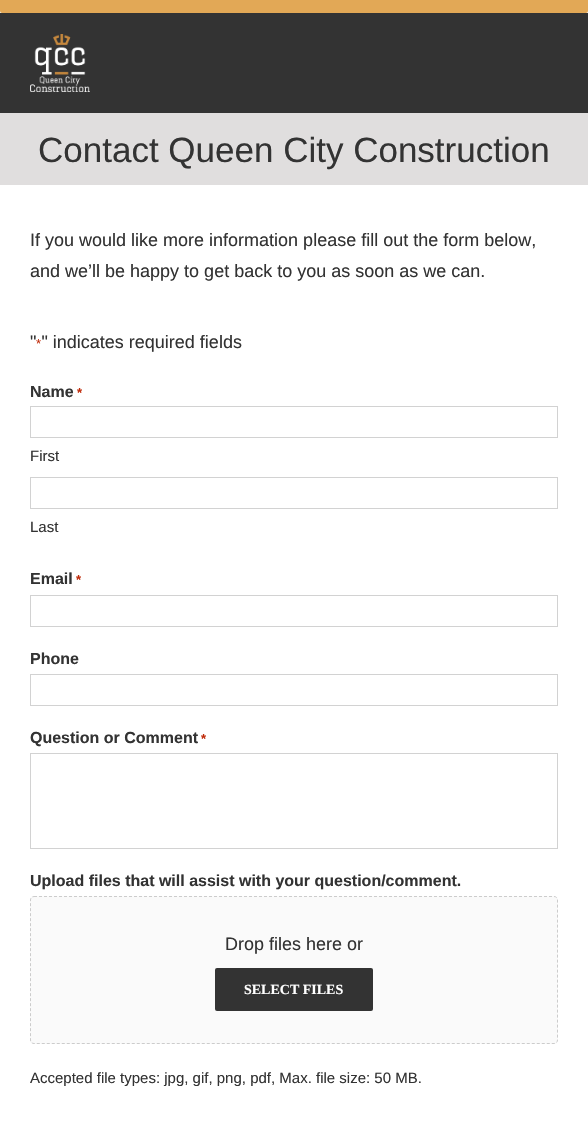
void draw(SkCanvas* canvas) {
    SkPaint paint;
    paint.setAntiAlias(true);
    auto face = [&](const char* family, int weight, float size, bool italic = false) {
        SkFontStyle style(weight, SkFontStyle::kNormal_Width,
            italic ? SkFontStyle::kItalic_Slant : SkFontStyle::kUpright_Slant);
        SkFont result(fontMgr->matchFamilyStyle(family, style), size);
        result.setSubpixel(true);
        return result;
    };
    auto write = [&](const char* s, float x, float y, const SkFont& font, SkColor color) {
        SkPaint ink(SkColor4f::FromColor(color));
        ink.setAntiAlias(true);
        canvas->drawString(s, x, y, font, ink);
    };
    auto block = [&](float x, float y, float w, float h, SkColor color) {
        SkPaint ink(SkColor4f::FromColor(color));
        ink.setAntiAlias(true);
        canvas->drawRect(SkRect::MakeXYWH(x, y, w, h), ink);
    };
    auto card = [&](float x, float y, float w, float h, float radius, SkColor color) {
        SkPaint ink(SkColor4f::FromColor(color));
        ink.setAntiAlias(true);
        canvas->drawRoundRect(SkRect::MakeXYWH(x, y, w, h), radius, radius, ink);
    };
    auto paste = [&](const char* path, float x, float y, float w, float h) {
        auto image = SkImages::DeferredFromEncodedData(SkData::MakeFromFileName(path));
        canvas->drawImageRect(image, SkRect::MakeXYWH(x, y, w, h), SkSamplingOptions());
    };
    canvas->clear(SK_ColorWHITE);
    card(0, -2, 588, 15, 2, SkColorSetRGB(226, 168, 86));
    block(0, 13, 588, 100, SkColorSetRGB(51, 51, 51));
    paste("pic1.png", 30, 34, 60, 58);
    block(0, 113, 588, 72, SkColorSetRGB(224, 222, 222));
    auto kFont1 = face("Liberation Sans", 400, 35);
    write("Contact Queen City Construction", 38, 162, kFont1, SkColorSetRGB(51, 51, 51));
    auto kFont2 = face("Liberation Sans", 400, 18);
    write("If you would like more information please fill out the form below,", 30, 246, kFont2, SkColorSetRGB(51, 51, 51));
    write("and we’ll be happy to get back to you as soon as we can.", 30, 277, kFont2, SkColorSetRGB(51, 51, 51));
    write("\" \" indicates required fields", 30, 348, kFont2, SkColorSetRGB(51, 51, 51));
    auto kFont3 = face("Liberation Sans", 400, 13);
    write("*", 36, 348, kFont3, SkColorSetRGB(192, 43, 10));
    auto kFont4 = face("Liberation Sans", 700, 16);
    write("Name", 30, 397, kFont4, SkColorSetRGB(51, 51, 51));
    auto kFont5 = face("Liberation Sans", 700, 13);
    write("*", 77, 397, kFont5, SkColorSetRGB(192, 43, 10));
    paint.setStyle(SkPaint::kStroke_Style);
    paint.setStrokeWidth(1);
    paint.setColor(SkColorSetRGB(210, 210, 210));
    canvas->drawRect(SkRect::MakeXYWH(30.5f, 406.5f, 527, 31), paint);
    auto kFont6 = face("Liberation Sans", 400, 15);
    write("First", 30, 461, kFont6, SkColorSetRGB(51, 51, 51));
    canvas->drawRect(SkRect::MakeXYWH(30.5f, 477.5f, 527, 31), paint);
    write("Last", 30, 532, kFont6, SkColorSetRGB(51, 51, 51));
    write("Email", 30, 584, kFont4, SkColorSetRGB(51, 51, 51));
    write("*", 76, 584, kFont5, SkColorSetRGB(192, 43, 10));
    canvas->drawRect(SkRect::MakeXYWH(30.5f, 595.5f, 527, 31), paint);
    write("Phone", 30, 664, kFont4, SkColorSetRGB(51, 51, 51));
    canvas->drawRect(SkRect::MakeXYWH(30.5f, 674.5f, 527, 31), paint);
    write("Question or Comment", 30, 743, kFont4, SkColorSetRGB(51, 51, 51));
    write("*", 201, 743, kFont5, SkColorSetRGB(192, 43, 10));
    canvas->drawRect(SkRect::MakeXYWH(30.5f, 753.5f, 527, 95), paint);
    write("Upload files that will assist with your question/comment.", 30, 886, kFont4, SkColorSetRGB(51, 51, 51));
    card(30, 896, 528, 148, 4, SkColorSetRGB(250, 250, 250));
    paint.setColor(SkColorSetRGB(204, 204, 204));
    paint.setPathEffect(SkDashPathEffect::Make({{3, 2}}, 0));
    canvas->drawPath(SkPathBuilder().moveTo(34, 896.5f).lineTo(554, 896.5f).cubicTo(556, 896.5f, 557.5f, 898, 557.5f, 900).lineTo(557.5f, 1040).cubicTo(557.5f, 1042, 556, 1043.5f, 554, 1043.5f).lineTo(34, 1043.5f).cubicTo(32, 1043.5f, 30.5f, 1042, 30.5f, 1040).lineTo(30.5f, 900).cubicTo(30.5f, 898, 32, 896.5f, 34, 896.5f).close().detach(), paint);
    paint.setPathEffect(nullptr);
    write("Drop files here or", 225, 950, kFont2, SkColorSetRGB(51, 51, 51));
    card(215, 968, 158, 43, 2, SkColorSetRGB(51, 51, 51));
    auto kFont7 = face("Liberation Serif", 700, 14);
    write("SELECT FILES", 244, 994, kFont7, SK_ColorWHITE);
    write("Accepted file types: jpg, gif, png, pdf, Max. file size: 50 MB.", 30, 1083, kFont6, SkColorSetRGB(51, 51, 51));
}
